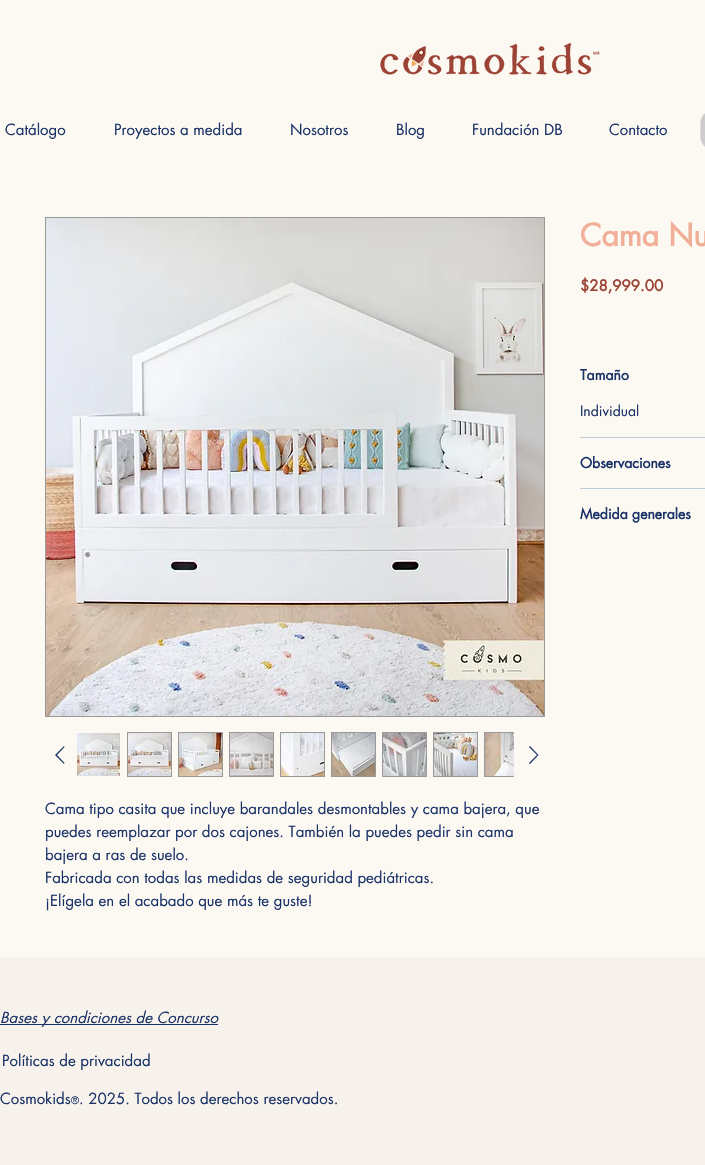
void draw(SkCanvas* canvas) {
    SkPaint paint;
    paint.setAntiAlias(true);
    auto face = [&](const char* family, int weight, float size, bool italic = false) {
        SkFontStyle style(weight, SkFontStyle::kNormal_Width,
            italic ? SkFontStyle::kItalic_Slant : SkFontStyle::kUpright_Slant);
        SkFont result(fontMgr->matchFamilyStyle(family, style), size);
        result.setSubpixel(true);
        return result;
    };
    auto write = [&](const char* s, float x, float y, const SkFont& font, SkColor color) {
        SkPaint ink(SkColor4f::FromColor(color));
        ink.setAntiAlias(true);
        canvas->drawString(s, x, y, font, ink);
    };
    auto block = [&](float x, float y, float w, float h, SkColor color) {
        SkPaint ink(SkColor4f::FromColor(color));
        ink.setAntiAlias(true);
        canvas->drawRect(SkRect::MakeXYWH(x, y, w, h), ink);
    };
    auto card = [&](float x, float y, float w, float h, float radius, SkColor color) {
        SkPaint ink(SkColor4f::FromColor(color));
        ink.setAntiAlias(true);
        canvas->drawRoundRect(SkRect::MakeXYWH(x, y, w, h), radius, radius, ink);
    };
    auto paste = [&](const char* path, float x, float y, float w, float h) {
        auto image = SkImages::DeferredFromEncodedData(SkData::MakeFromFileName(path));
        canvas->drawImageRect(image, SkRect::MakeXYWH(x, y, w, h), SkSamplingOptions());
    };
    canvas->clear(SkColorSetRGB(252, 248, 242));
    paste("pic1.png", 380, 43, 220, 32);
    auto kFont1 = face("futura", 400, 15);
    write("Catálogo", 5, 135, kFont1, SkColorSetRGB(25, 50, 104));
    write("Proyectos a medida", 114, 135, kFont1, SkColorSetRGB(25, 50, 104));
    write("Nosotros", 290, 135, kFont1, SkColorSetRGB(25, 50, 104));
    write("Blog", 396, 135, kFont1, SkColorSetRGB(25, 50, 104));
    write("Fundación DB", 472, 135, kFont1, SkColorSetRGB(25, 50, 104));
    write("Contacto", 609, 135, kFont1, SkColorSetRGB(25, 50, 104));
    paint.setStyle(SkPaint::kStroke_Style);
    paint.setStrokeWidth(1);
    paint.setColor(SkColorSetRGB(219, 219, 219));
    canvas->drawRoundRect(SkRect::MakeXYWH(700.5f, 110.5f, 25, 39), 19.5f, 19.5f, paint);
    card(701, 111, 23, 38, 19, SkColorSetRGB(204, 204, 204));
    auto kFont2 = face("futura", 700, 30);
    write("Cama Nu", 580, 246, kFont2, SkColorSetRGB(241, 175, 152));
    auto kFont3 = face("futura", 700, 15);
    write("$28,999.00", 580, 291, kFont3, SkColorSetRGB(155, 66, 52));
    block(580, 437, 125, 1, SkColorSetRGB(191, 202, 219));
    auto kFont4 = face("futura", 700, 14);
    write("Tamaño", 580, 380, kFont4, SkColorSetRGB(25, 50, 104));
    auto kFont5 = face("futura", 400, 14);
    write("Individual", 580, 416, kFont5, SkColorSetRGB(25, 50, 104));
    block(580, 488, 125, 1, SkColorSetRGB(191, 202, 219));
    write("Observaciones", 580, 468, kFont4, SkColorSetRGB(25, 50, 104));
    write("Medida generales", 580, 519, kFont4, SkColorSetRGB(25, 50, 104));
    paint.setColor(SkColorSetRGB(153, 153, 153));
    canvas->drawRect(SkRect::MakeXYWH(45.5f, 217.5f, 499, 499), paint);
    paste("pic2.png", 46, 218, 498, 498);
    paint.setStyle(SkPaint::kFill_Style);
    paint.setColor(SkColorSetRGB(25, 50, 104));
    canvas->drawPath(SkPathBuilder(SkPathFillType::kEvenOdd).moveTo(64, 746).lineTo(64.5f, 747).lineTo(57, 755).lineTo(64.5f, 763).lineTo(64, 764).lineTo(55, 755).close().detach(), paint);
    paste("pic3.png", 77, 733, 43, 43);
    paint.setStyle(SkPaint::kStroke_Style);
    paint.setColor(SkColorSetRGB(153, 153, 153));
    canvas->drawRect(SkRect::MakeXYWH(127.5f, 732.5f, 44, 44), paint);
    paste("pic4.png", 128, 733, 43, 43);
    canvas->drawRect(SkRect::MakeXYWH(178.5f, 732.5f, 44, 44), paint);
    paste("pic5.png", 179, 733, 43, 43);
    canvas->drawRect(SkRect::MakeXYWH(229.5f, 732.5f, 44, 44), paint);
    paste("pic6.png", 230, 733, 43, 43);
    canvas->drawRect(SkRect::MakeXYWH(280.5f, 732.5f, 44, 44), paint);
    paste("pic7.png", 281, 733, 43, 43);
    canvas->drawRect(SkRect::MakeXYWH(331.5f, 732.5f, 44, 44), paint);
    paste("pic8.png", 332, 733, 43, 43);
    canvas->drawRect(SkRect::MakeXYWH(382.5f, 732.5f, 44, 44), paint);
    paste("pic9.png", 383, 733, 43, 43);
    canvas->drawRect(SkRect::MakeXYWH(433.5f, 732.5f, 44, 44), paint);
    paste("pic10.png", 434, 733, 43, 43);
    canvas->save();
    canvas->clipRect(SkRect::MakeXYWH(72, 728, 442, 53));
    canvas->drawRect(SkRect::MakeXYWH(484.5f, 732.5f, 44, 44), paint);
    canvas->restore();
    paste("pic11.png", 485, 733, 29, 43);
    paint.setStyle(SkPaint::kFill_Style);
    paint.setColor(SkColorSetRGB(25, 50, 104));
    canvas->drawPath(SkPathBuilder(SkPathFillType::kEvenOdd).moveTo(530, 746).lineTo(538.5f, 755).lineTo(530, 764).lineTo(529, 763).lineTo(537, 755).lineTo(529, 747).close().detach(), paint);
    write("Cama tipo casita que incluye barandales desmontables y cama bajera, que", 45, 814, kFont1, SkColorSetRGB(25, 50, 104));
    write("puedes reemplazar por dos cajones. También la puedes pedir sin cama", 45, 837, kFont1, SkColorSetRGB(25, 50, 104));
    write("bajera a ras de suelo.", 45, 860, kFont1, SkColorSetRGB(25, 50, 104));
    write("Fabricada con todas las medidas de seguridad pediátricas.", 45, 883, kFont1, SkColorSetRGB(25, 50, 104));
    write("¡Elígela en el acabado que más te guste!", 45, 906, kFont1, SkColorSetRGB(25, 50, 104));
    block(0, 957, 705, 208, SkColorSetRGB(247, 242, 235));
    block(0, 1024, 218, 1, SkColorSetRGB(25, 50, 104));
    auto kFont6 = face("futura", 400, 15, true);
    write("Bases y condiciones de Concurso", 0, 1023, kFont6, SkColorSetRGB(25, 50, 104));
    write("Políticas de privacidad", 2, 1066, kFont1, SkColorSetRGB(25, 50, 104));
    write("Cosmokids", 0, 1104, kFont1, SkColorSetRGB(25, 50, 104));
    auto kFont7 = face("futura", 400, 10);
    write("®", 71, 1104, kFont7, SkColorSetRGB(25, 50, 104));
    write(". 2025. Todos los derechos reservados.", 79, 1104, kFont1, SkColorSetRGB(25, 50, 104));
}
